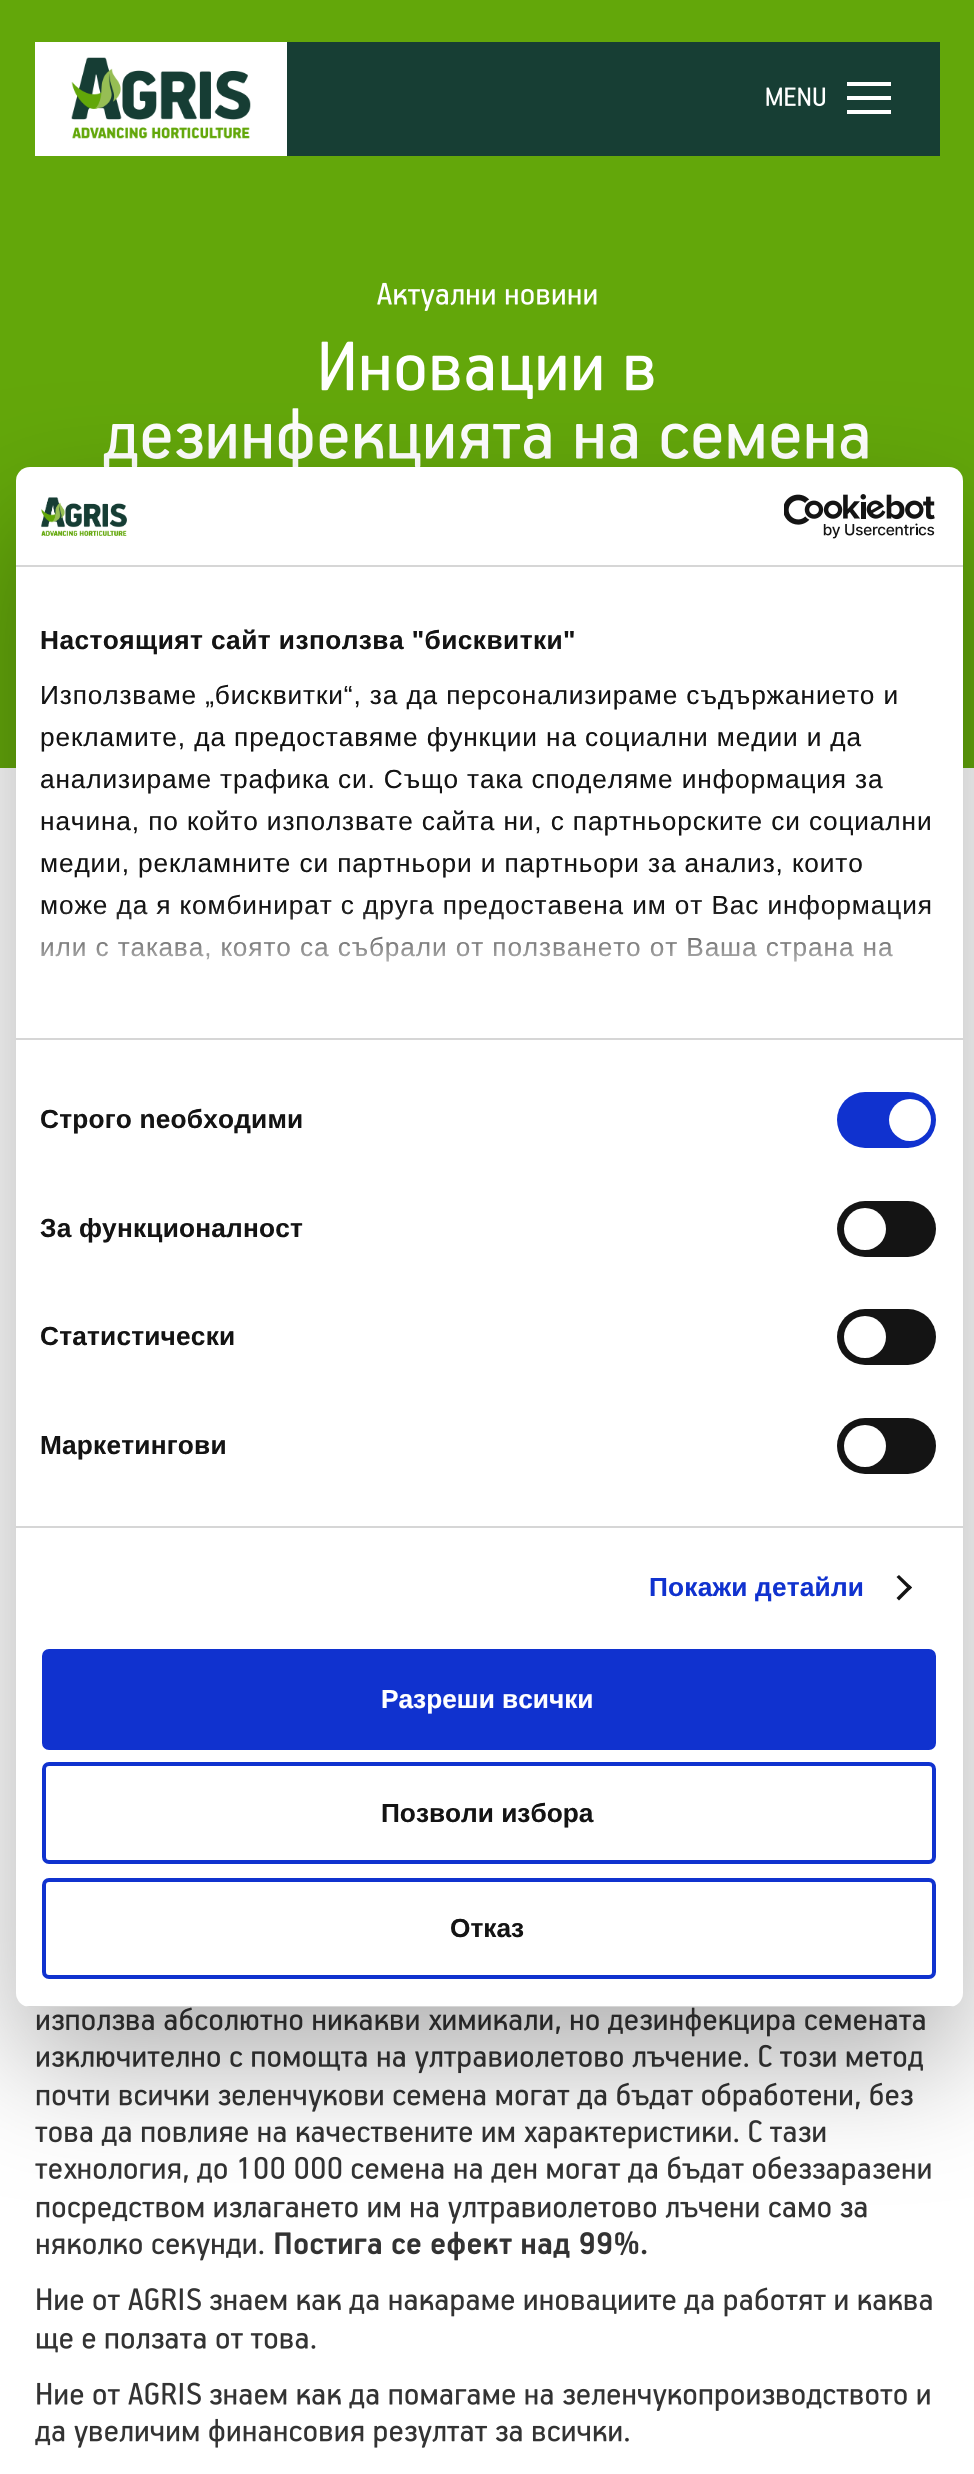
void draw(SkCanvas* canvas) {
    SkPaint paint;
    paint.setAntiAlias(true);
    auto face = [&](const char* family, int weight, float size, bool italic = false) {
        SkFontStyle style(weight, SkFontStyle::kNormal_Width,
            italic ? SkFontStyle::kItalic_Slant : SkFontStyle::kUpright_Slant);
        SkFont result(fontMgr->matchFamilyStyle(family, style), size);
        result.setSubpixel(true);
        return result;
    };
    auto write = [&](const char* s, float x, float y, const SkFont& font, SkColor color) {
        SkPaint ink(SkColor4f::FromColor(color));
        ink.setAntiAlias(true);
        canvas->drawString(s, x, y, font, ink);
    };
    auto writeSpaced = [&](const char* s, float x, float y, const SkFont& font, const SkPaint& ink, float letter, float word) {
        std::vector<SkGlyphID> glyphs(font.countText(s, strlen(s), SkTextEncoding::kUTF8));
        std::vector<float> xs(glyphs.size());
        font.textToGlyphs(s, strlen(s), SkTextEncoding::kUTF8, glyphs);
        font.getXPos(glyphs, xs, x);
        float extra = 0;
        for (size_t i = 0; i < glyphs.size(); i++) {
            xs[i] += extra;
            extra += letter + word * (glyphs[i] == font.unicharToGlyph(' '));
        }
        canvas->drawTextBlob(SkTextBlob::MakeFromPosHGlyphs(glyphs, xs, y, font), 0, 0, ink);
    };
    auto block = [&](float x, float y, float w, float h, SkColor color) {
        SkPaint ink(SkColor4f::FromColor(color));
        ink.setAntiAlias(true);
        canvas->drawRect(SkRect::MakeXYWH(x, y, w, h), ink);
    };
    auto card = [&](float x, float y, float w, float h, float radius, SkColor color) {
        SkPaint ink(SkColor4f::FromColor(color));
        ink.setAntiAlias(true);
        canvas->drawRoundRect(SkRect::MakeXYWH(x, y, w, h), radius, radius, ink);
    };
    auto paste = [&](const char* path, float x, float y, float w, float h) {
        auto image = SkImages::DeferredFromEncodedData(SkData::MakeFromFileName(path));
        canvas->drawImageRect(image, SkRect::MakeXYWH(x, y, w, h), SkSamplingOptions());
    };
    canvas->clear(SK_ColorWHITE);
    block(0, 0, 974, 768, SkColorSetRGB(99, 167, 10));
    paste("pic1.png", 377, 282, 220, 29);
    paste("pic2.png", 321, 341, 333, 58);
    paste("pic3.png", 103, 408, 765, 59);
    paste("pic4.png", 36, 2007, 889, 30);
    paste("pic5.png", 36, 2044, 887, 30);
    paste("pic6.png", 36, 2082, 877, 30);
    paste("pic7.png", 35, 2120, 791, 29);
    paste("pic8.png", 35, 2156, 896, 30);
    paste("pic9.png", 36, 2201, 831, 23);
    paste("pic10.png", 36, 2238, 228, 23);
    paste("pic11.png", 275, 2231, 372, 30);
    paste("pic12.png", 37, 2287, 895, 30);
    paste("pic13.png", 36, 2332, 280, 21);
    paste("pic14.png", 37, 2382, 893, 29);
    paste("pic15.png", 35, 2418, 594, 30);
    block(287, 42, 653, 114, SkColorSetRGB(23, 62, 52));
    block(35, 42, 252, 114, SK_ColorWHITE);
    paste("pic16.png", 71, 57, 180, 82);
    paste("pic17.png", 766, 87, 60, 20);
    block(847, 82, 44, 4, SK_ColorWHITE);
    block(847, 96, 44, 4, SK_ColorWHITE);
    block(847, 110, 44, 4, SK_ColorWHITE);
    paint.setColor(SkColorSetARGB(77, 0, 0, 0));
    paint.setMaskFilter(SkMaskFilter::MakeBlur(kNormal_SkBlurStyle, 59.5f));
    canvas->drawRoundRect(SkRect::MakeXYWH(16, 523, 947, 1540), 14, 14, paint);
    paint.setMaskFilter(nullptr);
    card(16, 467, 947, 1540, 14, SK_ColorWHITE);
    block(16, 565, 947, 2, SkColorSetRGB(214, 214, 214));
    paste("pic18.png", 41, 497, 86, 39);
    paste("pic19.png", 784, 494, 151, 45);
    block(16, 1038, 947, 2, SkColorSetRGB(214, 214, 214));
    auto kFont1 = face("Liberation Sans", 700, 26.25f);
    paint.setColor(SkColorSetRGB(20, 20, 20));
    writeSpaced("Настоящият сайт използва \"бисквитки\"", 40, 649, kFont1, paint, 0.45f, 0);
    auto kFont2 = face("Liberation Sans", 400, 26.25f);
    writeSpaced("Използваме „бисквитки“, за да персонализираме съдържанието и", 40, 704, kFont2, paint, 0.88f, 0);
    writeSpaced("рекламите, да предоставяме функции на социални медии и да", 40, 746, kFont2, paint, 0.88f, 0);
    writeSpaced("анализираме трафика си. Също така споделяме информация за", 40, 788, kFont2, paint, 0.88f, 0);
    writeSpaced("начина, по който използвате сайта ни, с партньорските си социални", 40, 830, kFont2, paint, 0.88f, 0);
    writeSpaced("медии, рекламните си партньори и партньори за анализ, които", 40, 872, kFont2, paint, 0.88f, 0);
    writeSpaced("може да я комбинират с друга предоставена им от Вас информация", 40, 914, kFont2, paint, 0.88f, 0);
    writeSpaced("или с такава, която са събрали от ползването от Ваша страна на", 40, 956, kFont2, paint, 0.88f, 0);
    {
        const SkColor colors[] = {SK_ColorWHITE, SkColorSetARGB(204, 255, 255, 255), SkColorSetARGB(0, 255, 255, 255)};
        const float stops[] = {0, 0.5f, 1};
        const SkPoint ends[] = {{477, 1038}, {477, 907}};
        paint.setShader(SkGradientShader::MakeLinear(ends, colors, stops, 3, SkTileMode::kClamp));
        paint.setAlpha(255);
    }
    canvas->drawRect(SkRect::MakeXYWH(42, 909, 888, 53), paint);
    block(16, 1526, 947, 2, SkColorSetRGB(214, 214, 214));
    paint.setShader(nullptr);
    paint.setColor(SkColorSetRGB(20, 20, 20));
    writeSpaced("Строго nеобходими", 40, 1128, kFont1, paint, 0.2f, 0);
    card(837, 1092, 99, 56, 28, SkColorSetRGB(16, 50, 207));
    paint.setColor(SK_ColorWHITE);
    canvas->drawCircle(910, 1120, 21, paint);
    paint.setColor(SkColorSetRGB(20, 20, 20));
    writeSpaced("За функционалност", 40, 1237, kFont1, paint, 0.2f, 0);
    card(837, 1201, 99, 56, 28, SkColorSetRGB(20, 20, 20));
    paint.setColor(SK_ColorWHITE);
    canvas->drawCircle(865, 1229, 21, paint);
    paint.setColor(SkColorSetRGB(20, 20, 20));
    writeSpaced("Статистически", 40, 1345, kFont1, paint, 0.2f, 0);
    card(837, 1309, 99, 56, 28, SkColorSetRGB(20, 20, 20));
    paint.setColor(SK_ColorWHITE);
    canvas->drawCircle(865, 1337, 21, paint);
    paint.setColor(SkColorSetRGB(20, 20, 20));
    writeSpaced("Маркетингови", 40, 1454, kFont1, paint, 0.2f, 0);
    card(837, 1418, 99, 56, 28, SkColorSetRGB(20, 20, 20));
    paint.setColor(SK_ColorWHITE);
    canvas->drawCircle(865, 1446, 21, paint);
    paint.setColor(SkColorSetRGB(16, 50, 207));
    writeSpaced("Покажи детайли", 649, 1596, kFont1, paint, 0.2f, 0);
    paint.setColor(SkColorSetRGB(20, 20, 20));
    canvas->drawPath(SkPathBuilder().moveTo(899, 1575).lineTo(912, 1587.5f).lineTo(909.5f, 1590).lineTo(896.5f, 1577).close().detach(), paint);
    canvas->drawPath(SkPathBuilder().moveTo(909.5f, 1585).lineTo(912, 1587.5f).lineTo(899, 1600.5f).lineTo(896.5f, 1598).close().detach(), paint);
    canvas->save();
    canvas->clipPath(SkPathBuilder().moveTo(30, 467).lineTo(949, 467).cubicTo(956.5f, 467, 963, 473.5f, 963, 481).lineTo(963, 1993).cubicTo(963, 2000.5f, 956.5f, 2007, 949, 2007).lineTo(30, 2007).cubicTo(22.5f, 2007, 16, 2000.5f, 16, 1993).lineTo(16, 481).cubicTo(16, 473.5f, 22.5f, 467, 30, 467).close().detach(), true);
    block(25, 2006, 929, 1, SkColorSetRGB(214, 214, 214));
    canvas->restore();
    paint.setColor(SkColorSetRGB(16, 50, 207));
    canvas->drawRoundRect(SkRect::MakeXYWH(44, 1651, 890, 97), 5, 5, paint);
    paint.setStyle(SkPaint::kStroke_Style);
    paint.setStrokeWidth(4);
    canvas->drawRoundRect(SkRect::MakeXYWH(44, 1651, 890, 97), 5, 5, paint);
    write("Разреши всички", 381, 1708, kFont1, SK_ColorWHITE);
    canvas->drawRoundRect(SkRect::MakeXYWH(44, 1764, 890, 98), 5, 5, paint);
    write("Позволи избора", 381, 1822, kFont1, SkColorSetRGB(20, 20, 20));
    canvas->drawRoundRect(SkRect::MakeXYWH(44, 1880, 890, 97), 5, 5, paint);
    write("Отказ", 450, 1937, kFont1, SkColorSetRGB(20, 20, 20));
}
